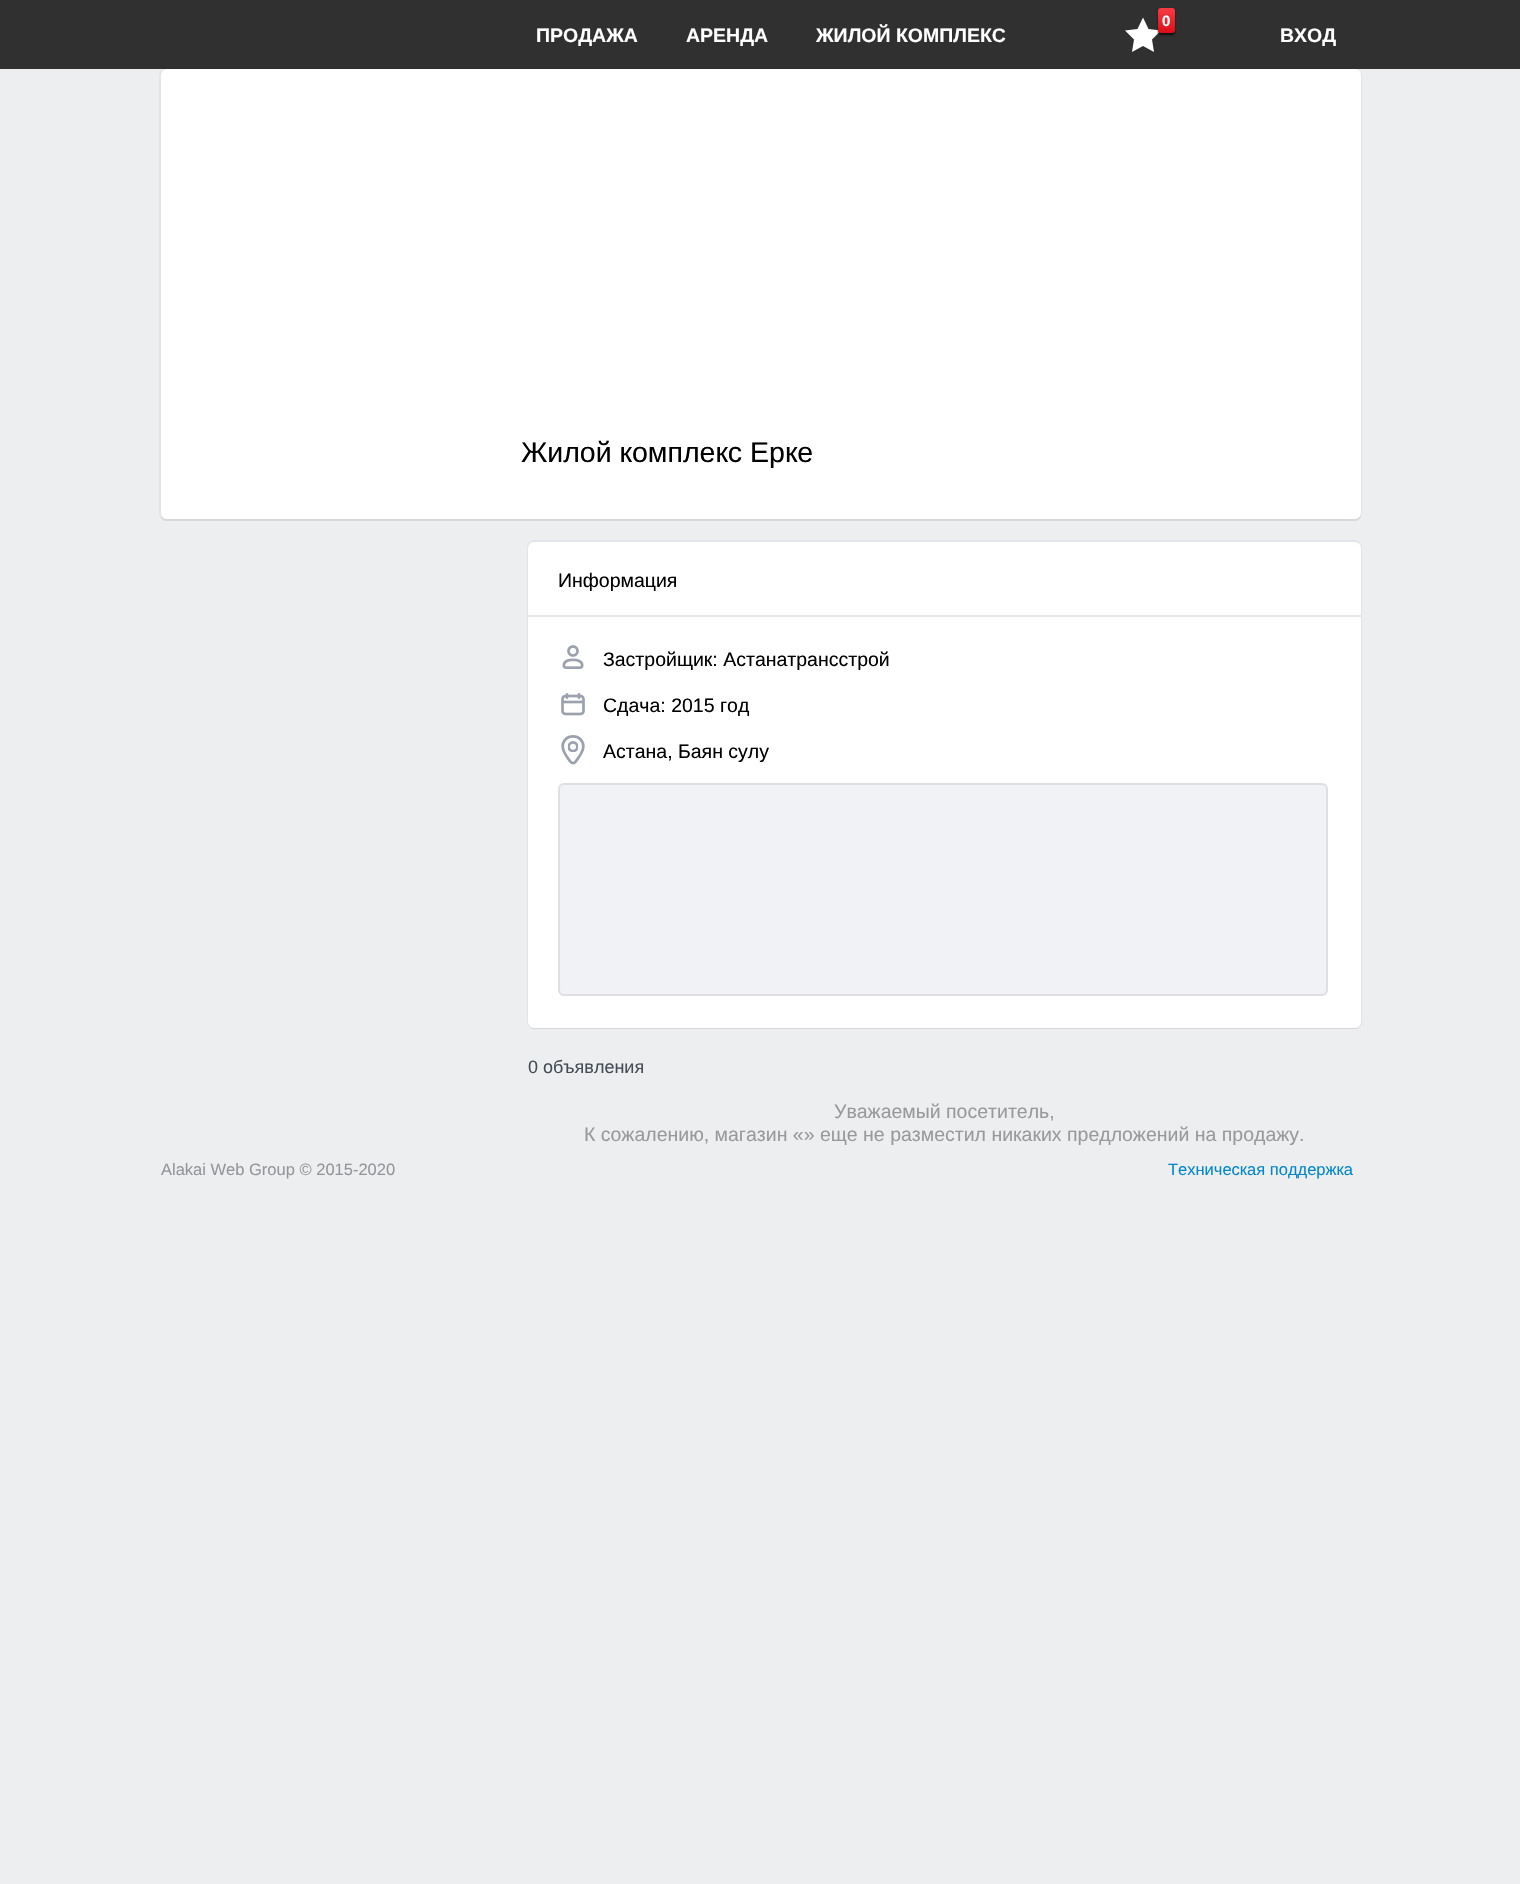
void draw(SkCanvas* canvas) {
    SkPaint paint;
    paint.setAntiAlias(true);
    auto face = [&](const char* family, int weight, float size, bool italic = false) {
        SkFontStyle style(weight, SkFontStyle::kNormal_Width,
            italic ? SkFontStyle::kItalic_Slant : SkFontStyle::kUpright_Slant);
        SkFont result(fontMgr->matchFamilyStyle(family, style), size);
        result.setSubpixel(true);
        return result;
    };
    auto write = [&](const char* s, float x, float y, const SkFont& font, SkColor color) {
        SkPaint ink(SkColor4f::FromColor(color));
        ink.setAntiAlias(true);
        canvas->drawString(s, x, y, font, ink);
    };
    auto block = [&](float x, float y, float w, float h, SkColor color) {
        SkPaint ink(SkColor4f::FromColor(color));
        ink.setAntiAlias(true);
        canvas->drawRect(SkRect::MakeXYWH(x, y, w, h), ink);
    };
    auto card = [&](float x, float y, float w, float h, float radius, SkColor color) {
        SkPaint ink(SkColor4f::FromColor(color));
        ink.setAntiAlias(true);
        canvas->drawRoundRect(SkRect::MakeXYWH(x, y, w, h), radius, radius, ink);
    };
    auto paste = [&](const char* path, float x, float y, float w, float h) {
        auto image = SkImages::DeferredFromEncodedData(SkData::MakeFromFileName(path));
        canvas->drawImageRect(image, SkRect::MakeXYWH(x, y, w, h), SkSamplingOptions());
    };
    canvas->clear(SkColorSetRGB(237, 238, 240));
    paint.setStyle(SkPaint::kStroke_Style);
    paint.setStrokeWidth(2);
    paint.setColor(SkColorSetRGB(227, 228, 232));
    canvas->drawRoundRect(SkRect::MakeXYWH(160, 69, 1201, 451), 7, 7, paint);
    block(0, 0, 1520, 69, SkColorSetARGB(204, 0, 0, 0));
    paint.setStyle(SkPaint::kFill_Style);
    paint.setColor(SK_ColorWHITE);
    canvas->drawPath(SkPathBuilder().moveTo(1161, 30.5f).lineTo(1148.5f, 29).lineTo(1143, 17.5f).lineTo(1137.5f, 29).lineTo(1125, 30.5f).lineTo(1134, 39.5f).lineTo(1132, 52).lineTo(1143, 46).lineTo(1154, 52).lineTo(1152, 39.5f).close().detach(), paint);
    paint.setColor(SkColorSetARGB(179, 0, 0, 0));
    paint.setMaskFilter(SkMaskFilter::MakeBlur(kNormal_SkBlurStyle, 1));
    canvas->drawRoundRect(SkRect::MakeXYWH(1158, 9, 17, 26), 3, 3, paint);
    paint.setMaskFilter(nullptr);
    {
        const SkColor colors[] = {SkColorSetRGB(250, 60, 69), SkColorSetRGB(220, 13, 23)};
        const float stops[] = {0, 1};
        const SkPoint ends[] = {{1166, 7.5f}, {1166, 33}};
        paint.setShader(SkGradientShader::MakeLinear(ends, colors, stops, 2, SkTileMode::kClamp));
        paint.setAlpha(255);
    }
    canvas->drawRoundRect(SkRect::MakeXYWH(1158, 8, 17, 25), 3, 3, paint);
    auto kFont1 = face("Liberation Sans", 700, 15);
    write("0", 1162, 26, kFont1, SK_ColorWHITE);
    auto kFont2 = face("Liberation Sans", 700, 19.5f);
    write("ПРОДАЖА", 536, 42, kFont2, SK_ColorWHITE);
    write("АРЕНДА", 686, 42, kFont2, SK_ColorWHITE);
    write("ЖИЛОЙ КОМПЛЕКС", 816, 42, kFont2, SK_ColorWHITE);
    write("ВХОД", 1280, 42, kFont2, SK_ColorWHITE);
    paint.setShader(nullptr);
    paint.setColor(SkColorSetRGB(215, 216, 219));
    canvas->drawPath(SkPathBuilder().moveTo(161, 515).cubicTo(161, 519, 164, 521, 167, 521).lineTo(1355, 521).cubicTo(1358, 521, 1361, 518, 1361, 515).lineTo(1361, 77).lineTo(1360, 75).lineTo(1360, 513).cubicTo(1360, 516, 1358, 519, 1354, 519).lineTo(166, 519).cubicTo(164, 519, 162, 518, 161, 515).close().detach(), paint);
    card(161, 69, 1200, 450, 6, SK_ColorWHITE);
    auto kFont3 = face("Liberation Sans", 400, 28.5f);
    write("Жилой комплекс Ерке", 521, 462, kFont3, SK_ColorBLACK);
    paint.setStyle(SkPaint::kStroke_Style);
    paint.setColor(SkColorSetRGB(227, 228, 232));
    canvas->drawRoundRect(SkRect::MakeXYWH(528, 541, 833, 487), 7, 7, paint);
    paint.setStyle(SkPaint::kFill_Style);
    paint.setColor(SkColorSetRGB(215, 216, 219));
    canvas->drawPath(SkPathBuilder().moveTo(528, 1022).lineTo(528, 1023).cubicTo(528, 1026, 531, 1029, 534, 1029).lineTo(1355, 1029).cubicTo(1358, 1029, 1361, 1026, 1361, 1023).lineTo(1361, 549).lineTo(1360, 546).lineTo(1360, 1022).cubicTo(1360, 1025, 1358, 1028, 1354, 1028).lineTo(534, 1028).cubicTo(531, 1028, 528, 1025, 528, 1022).close().detach(), paint);
    card(528, 542, 833, 486, 6, SK_ColorWHITE);
    block(528, 615, 833, 2, SkColorSetRGB(231, 232, 236));
    auto kFont4 = face("Liberation Sans", 400, 19.5f);
    write("Информация", 558, 587, kFont4, SK_ColorBLACK);
    paste("pic1.png", 562, 645, 22, 24);
    write("Застройщик: Астанатрансстрой", 603, 666, kFont4, SK_ColorBLACK);
    paste("pic2.png", 561, 693, 24, 23);
    write("Сдача: 2015 год", 603, 712, kFont4, SK_ColorBLACK);
    paste("pic3.png", 561, 735, 24, 30);
    write("Астана, Баян сулу", 603, 758, kFont4, SK_ColorBLACK);
    card(558, 783, 770, 213, 6, SkColorSetRGB(240, 242, 245));
    paint.setStyle(SkPaint::kStroke_Style);
    paint.setColor(SkColorSetARGB(20, 0, 0, 0));
    canvas->drawRoundRect(SkRect::MakeXYWH(559, 784, 768, 211), 5, 5, paint);
    auto kFont5 = face("Liberation Sans", 400, 18);
    write("0 объявления", 528, 1073, kFont5, SkColorSetRGB(69, 76, 85));
    write("Уважаемый посетитель,", 834, 1118, kFont4, SkColorSetRGB(153, 153, 153));
    write("К сожалению, магазин «» еще не разместил никаких предложений на продажу.", 584, 1141, kFont4, SkColorSetRGB(153, 153, 153));
    auto kFont6 = face("Liberation Sans", 400, 16.5f);
    write("Alakai Web Group © 2015-2020", 161, 1175, kFont6, SkColorSetRGB(147, 150, 153));
    write("Техническая поддержка", 1168, 1175, kFont6, SkColorSetRGB(3, 136, 204));
}
